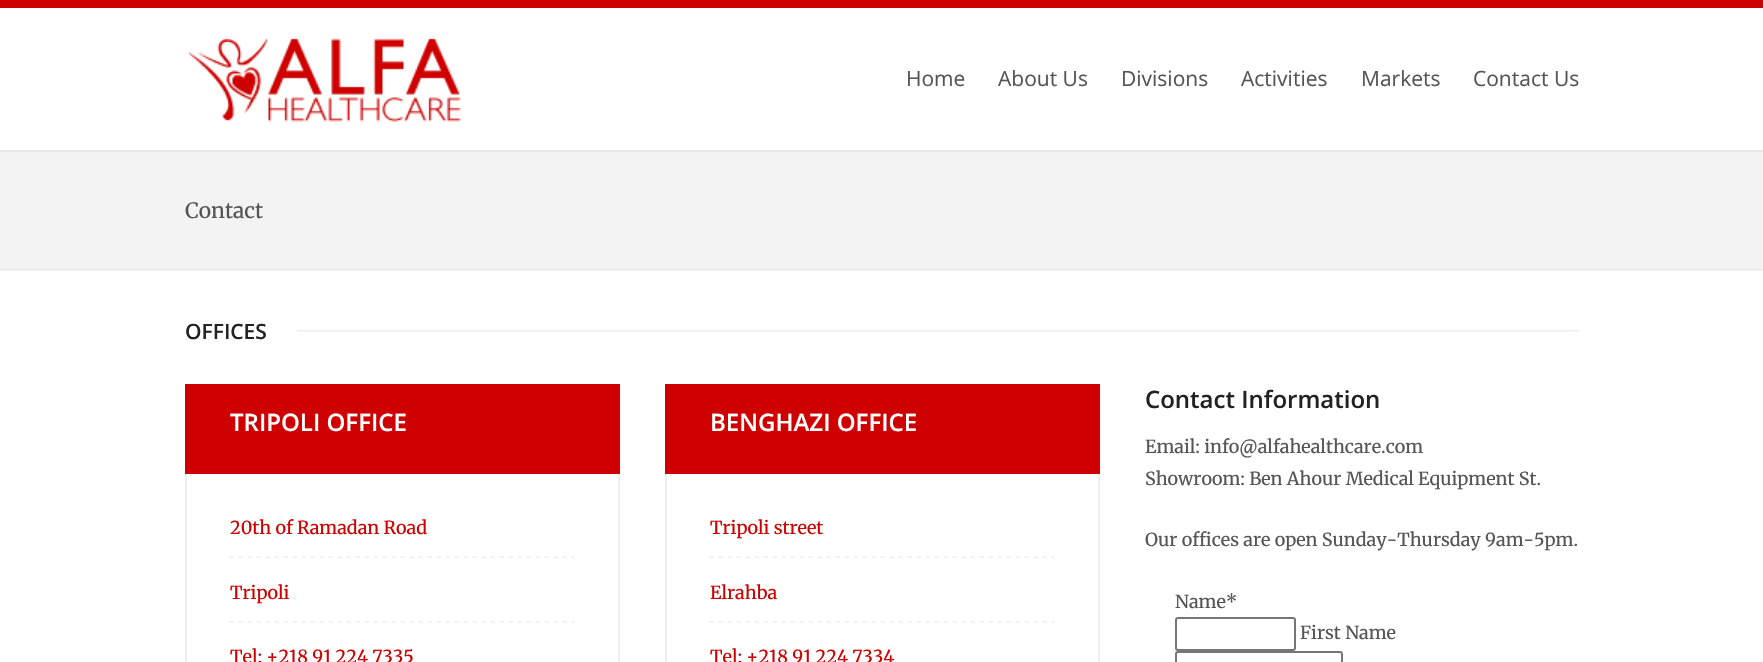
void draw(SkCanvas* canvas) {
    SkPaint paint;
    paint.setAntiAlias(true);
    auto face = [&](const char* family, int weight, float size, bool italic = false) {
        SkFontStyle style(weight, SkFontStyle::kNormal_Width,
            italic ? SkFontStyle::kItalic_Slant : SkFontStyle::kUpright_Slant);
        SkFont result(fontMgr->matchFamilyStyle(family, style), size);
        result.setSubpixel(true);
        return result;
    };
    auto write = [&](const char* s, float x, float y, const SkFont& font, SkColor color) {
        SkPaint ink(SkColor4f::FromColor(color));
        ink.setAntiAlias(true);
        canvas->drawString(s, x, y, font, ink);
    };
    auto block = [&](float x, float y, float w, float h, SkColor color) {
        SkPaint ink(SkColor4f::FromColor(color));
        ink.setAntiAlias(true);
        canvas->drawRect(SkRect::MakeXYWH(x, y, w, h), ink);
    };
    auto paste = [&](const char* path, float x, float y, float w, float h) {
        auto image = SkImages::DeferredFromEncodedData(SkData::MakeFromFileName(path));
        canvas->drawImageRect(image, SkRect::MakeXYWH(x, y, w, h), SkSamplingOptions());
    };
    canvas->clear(SK_ColorWHITE);
    block(0, 270, 1763, 1, SkColorSetRGB(242, 242, 242));
    block(0, 0, 1763, 8, SkColorSetRGB(206, 0, 0));
    paste("pic1.png", 188, 38, 273, 84);
    auto kFont1 = face("Open Sans", 400, 21);
    write("Home", 906, 86, kFont1, SkColorSetRGB(85, 85, 85));
    write("About Us", 998, 86, kFont1, SkColorSetRGB(85, 85, 85));
    write("Divisions", 1121, 86, kFont1, SkColorSetRGB(85, 85, 85));
    write("Activities", 1241, 86, kFont1, SkColorSetRGB(85, 85, 85));
    write("Markets", 1361, 86, kFont1, SkColorSetRGB(85, 85, 85));
    write("Contact Us", 1473, 86, kFont1, SkColorSetRGB(85, 85, 85));
    block(0, 152, 1763, 117, SkColorSetRGB(243, 243, 243));
    block(0, 269, 1763, 1, SkColorSetRGB(231, 231, 231));
    block(0, 150, 1763, 2, SkColorSetRGB(231, 231, 231));
    auto kFont2 = face("Merriweather", 300, 21);
    write("Contact", 185, 218, kFont2, SkColorSetRGB(85, 85, 85));
    paste("pic2.png", 184, 330, 1396, 2);
    block(185, 330, 112, 2, SK_ColorWHITE);
    auto kFont3 = face("Open Sans", 600, 21);
    write("OFFICES", 185, 339, kFont3, SkColorSetRGB(34, 34, 34));
    block(185, 384, 435, 90, SkColorSetRGB(206, 0, 0));
    auto kFont4 = face("Open Sans", 600, 24);
    write("TRIPOLI OFFICE", 230, 431, kFont4, SK_ColorWHITE);
    block(618, 474, 2, 188, SkColorSetRGB(236, 237, 243));
    block(185, 474, 2, 188, SkColorSetRGB(236, 237, 243));
    auto kFont5 = face("Merriweather", 300, 18);
    write("20th of Ramadan Road", 230, 534, kFont5, SkColorSetRGB(206, 0, 0));
    paste("pic3.png", 229, 556, 346, 2);
    write("Tripoli", 230, 599, kFont5, SkColorSetRGB(206, 0, 0));
    paste("pic4.png", 229, 621, 346, 2);
    write("Tel: +218 91 224 7335", 230, 663, kFont5, SkColorSetRGB(206, 0, 0));
    block(665, 384, 435, 90, SkColorSetRGB(206, 0, 0));
    write("BENGHAZI OFFICE", 710, 431, kFont4, SK_ColorWHITE);
    block(1098, 474, 2, 188, SkColorSetRGB(236, 237, 243));
    block(665, 474, 2, 188, SkColorSetRGB(236, 237, 243));
    write("Tripoli street", 710, 534, kFont5, SkColorSetRGB(206, 0, 0));
    paste("pic5.png", 709, 556, 346, 2);
    write("Elrahba", 710, 599, kFont5, SkColorSetRGB(206, 0, 0));
    paste("pic6.png", 709, 621, 346, 2);
    write("Tel: +218 91 224 7334", 710, 663, kFont5, SkColorSetRGB(206, 0, 0));
    write("Contact Information", 1145, 408, kFont4, SkColorSetRGB(34, 34, 34));
    write("Email: info@alfahealthcare.com", 1145, 453, kFont5, SkColorSetRGB(85, 85, 85));
    write("Showroom: Ben Ahour Medical Equipment St.", 1145, 485, kFont5, SkColorSetRGB(85, 85, 85));
    write("Our offices are open Sunday-Thursday 9am-5pm.", 1145, 546, kFont5, SkColorSetRGB(85, 85, 85));
    write("Name*", 1175, 608, kFont5, SkColorSetRGB(85, 85, 85));
    paint.setStyle(SkPaint::kStroke_Style);
    paint.setStrokeWidth(2);
    paint.setColor(SkColorSetRGB(118, 118, 118));
    canvas->drawRoundRect(SkRect::MakeXYWH(1176, 618, 119, 32), 2, 2, paint);
    write("First Name", 1300, 639, kFont5, SkColorSetRGB(85, 85, 85));
    canvas->drawRoundRect(SkRect::MakeXYWH(1176, 652, 166, 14), 2, 2, paint);
}
